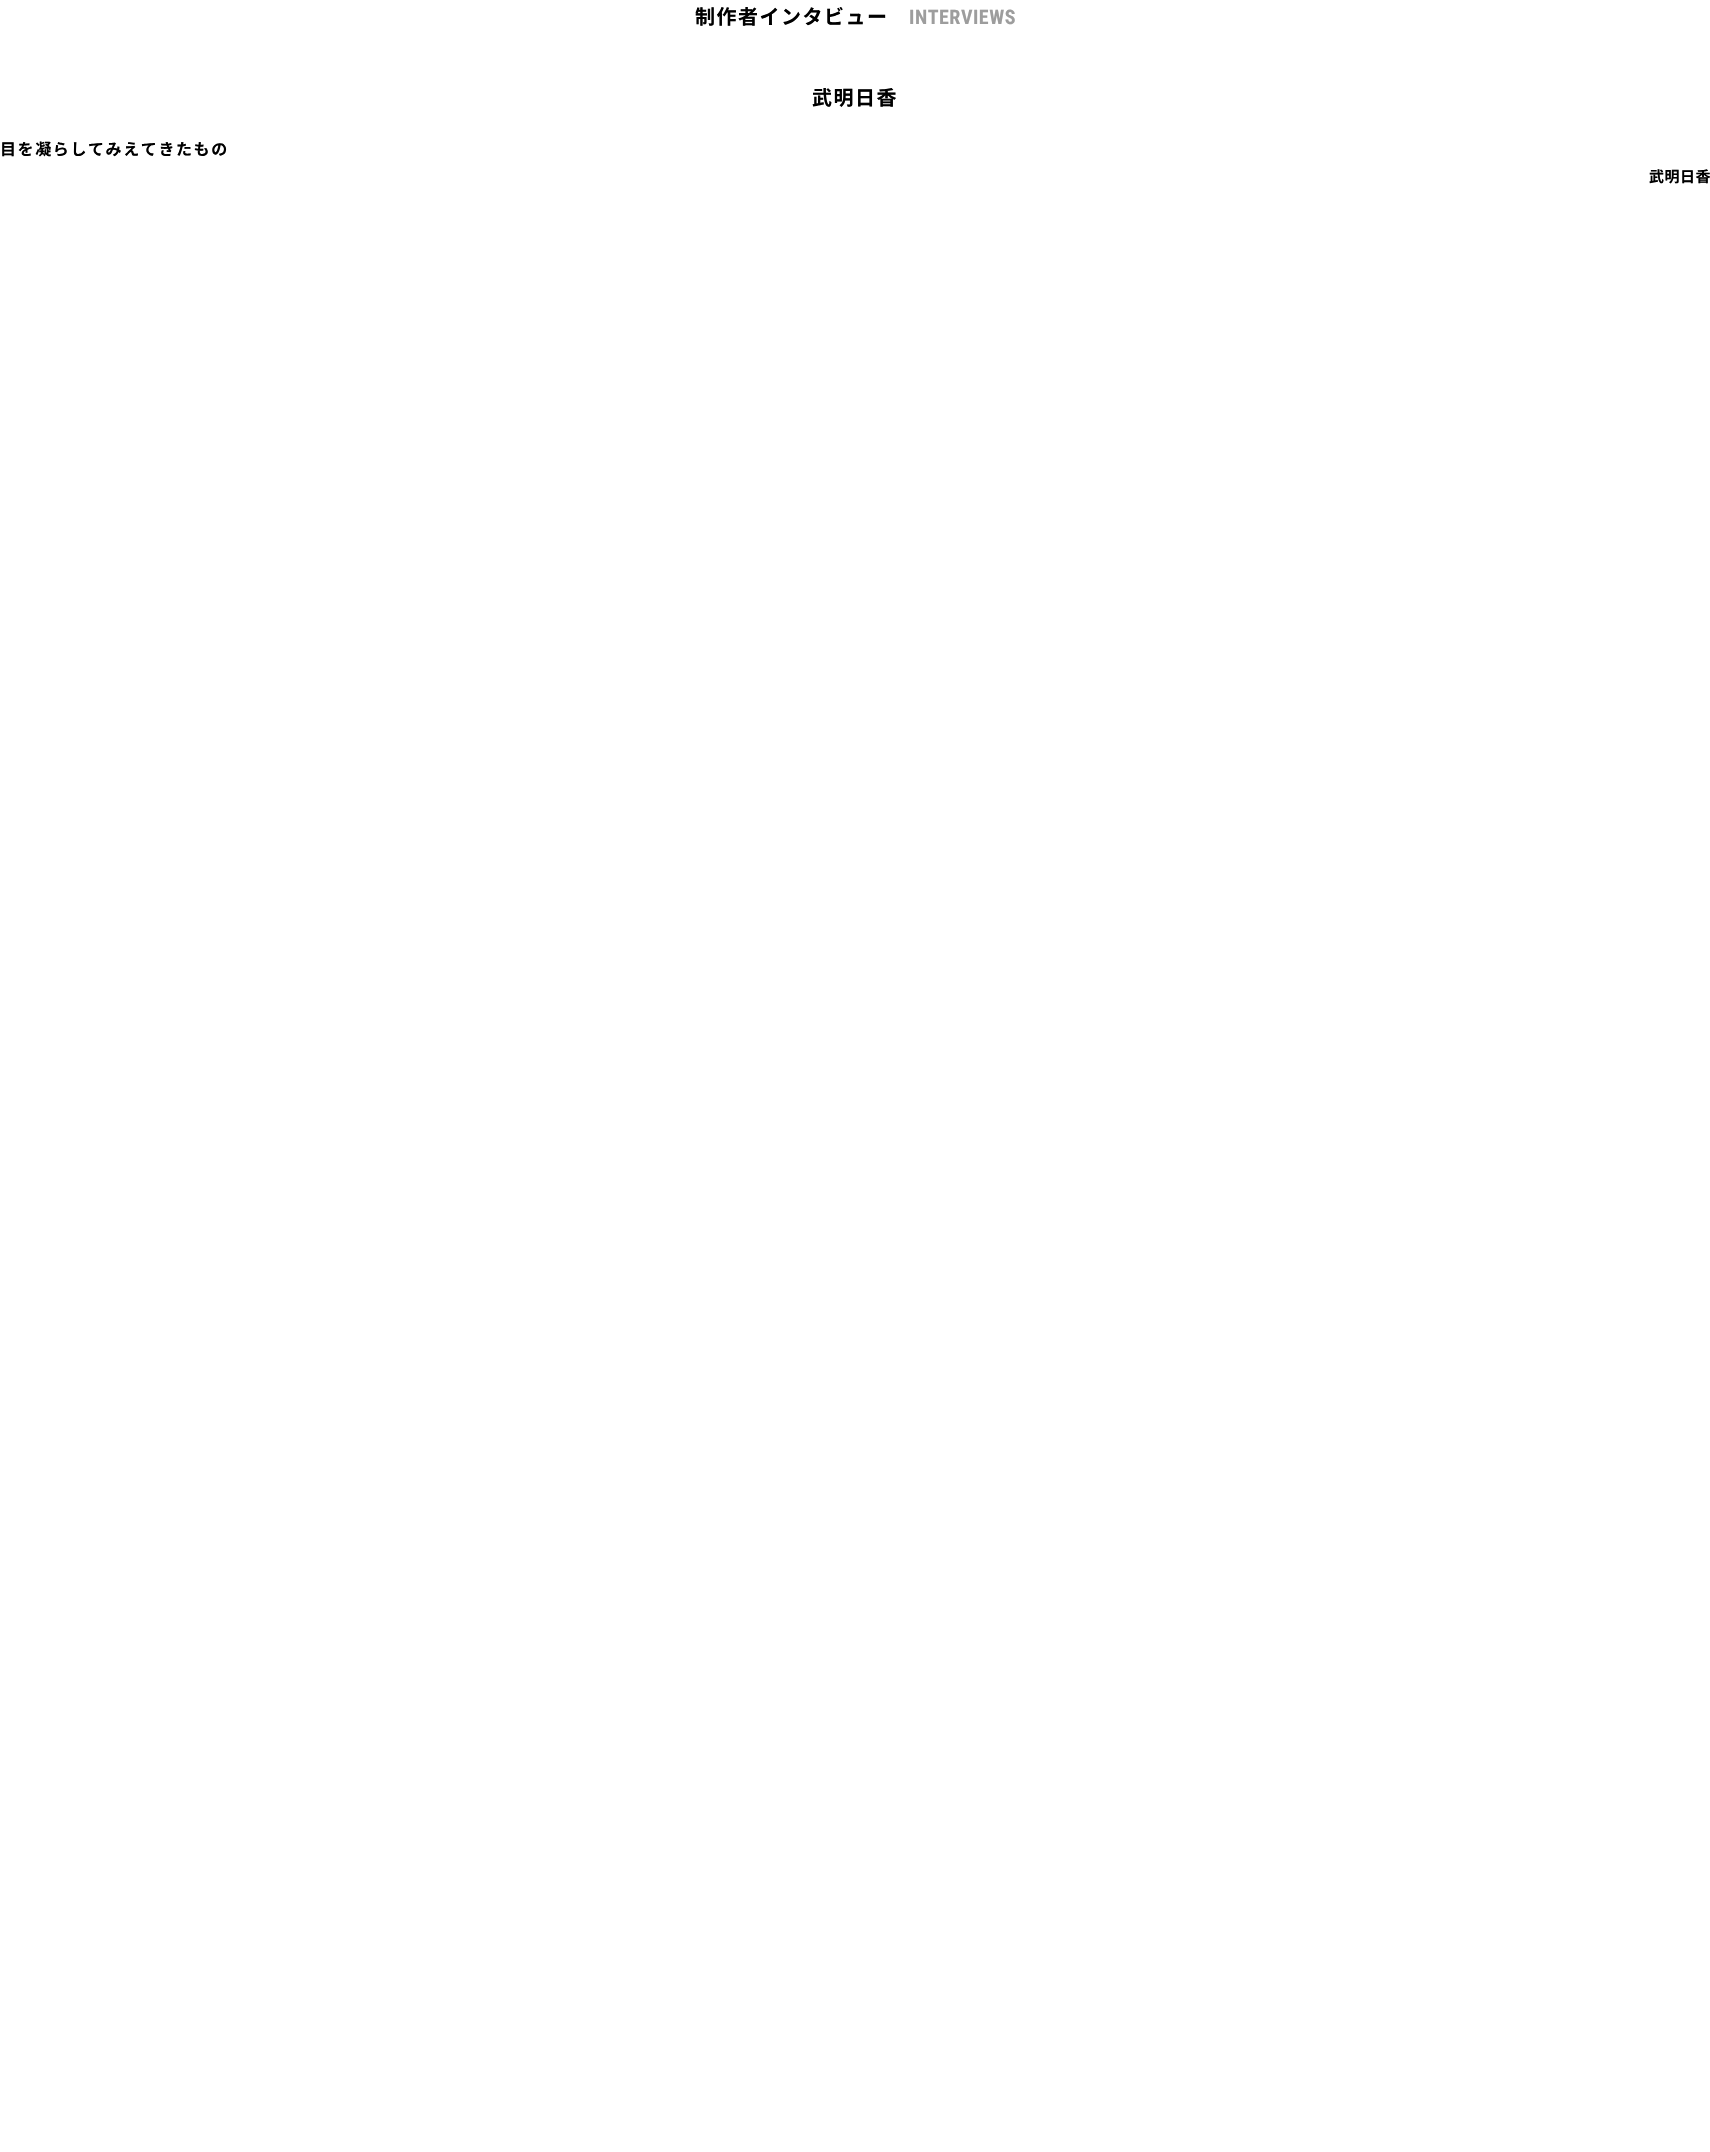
void draw(SkCanvas* canvas) {
    SkPaint paint;
    paint.setAntiAlias(true);
    auto face = [&](const char* family, int weight, float size, bool italic = false) {
        SkFontStyle style(weight, SkFontStyle::kNormal_Width,
            italic ? SkFontStyle::kItalic_Slant : SkFontStyle::kUpright_Slant);
        SkFont result(fontMgr->matchFamilyStyle(family, style), size);
        result.setSubpixel(true);
        return result;
    };
    auto writeSpaced = [&](const char* s, float x, float y, const SkFont& font, const SkPaint& ink, float letter, float word) {
        std::vector<SkGlyphID> glyphs(font.countText(s, strlen(s), SkTextEncoding::kUTF8));
        std::vector<float> xs(glyphs.size());
        font.textToGlyphs(s, strlen(s), SkTextEncoding::kUTF8, glyphs);
        font.getXPos(glyphs, xs, x);
        float extra = 0;
        for (size_t i = 0; i < glyphs.size(); i++) {
            xs[i] += extra;
            extra += letter + word * (glyphs[i] == font.unicharToGlyph(' '));
        }
        canvas->drawTextBlob(SkTextBlob::MakeFromPosHGlyphs(glyphs, xs, y, font), 0, 0, ink);
    };
    canvas->clear(SK_ColorWHITE);
    auto kFont1 = face("Noto Sans JP", 700, 20);
    paint.setColor(SK_ColorBLACK);
    writeSpaced("制作者インタビュー", 695, 24, kFont1, paint, 1.5f, 0);
    auto kFont2 = face("Roboto Condensed", 700, 20);
    paint.setColor(SkColorSetRGB(157, 157, 157));
    writeSpaced("INTERVIEWS", 909, 24, kFont2, paint, 0.5f, 0);
    paint.setColor(SK_ColorBLACK);
    writeSpaced("武明日香", 812, 105, kFont1, paint, 1.5f, 0);
    auto kFont3 = face("Noto Sans JP", 700, 16);
    writeSpaced("目を凝らしてみえてきたもの", 0, 155, kFont3, paint, 1.6f, 0);
    auto kFont4 = face("Noto Sans JP", 700, 15);
    writeSpaced("武明日香", 1649, 182, kFont4, paint, 0.5f, 0);
}
